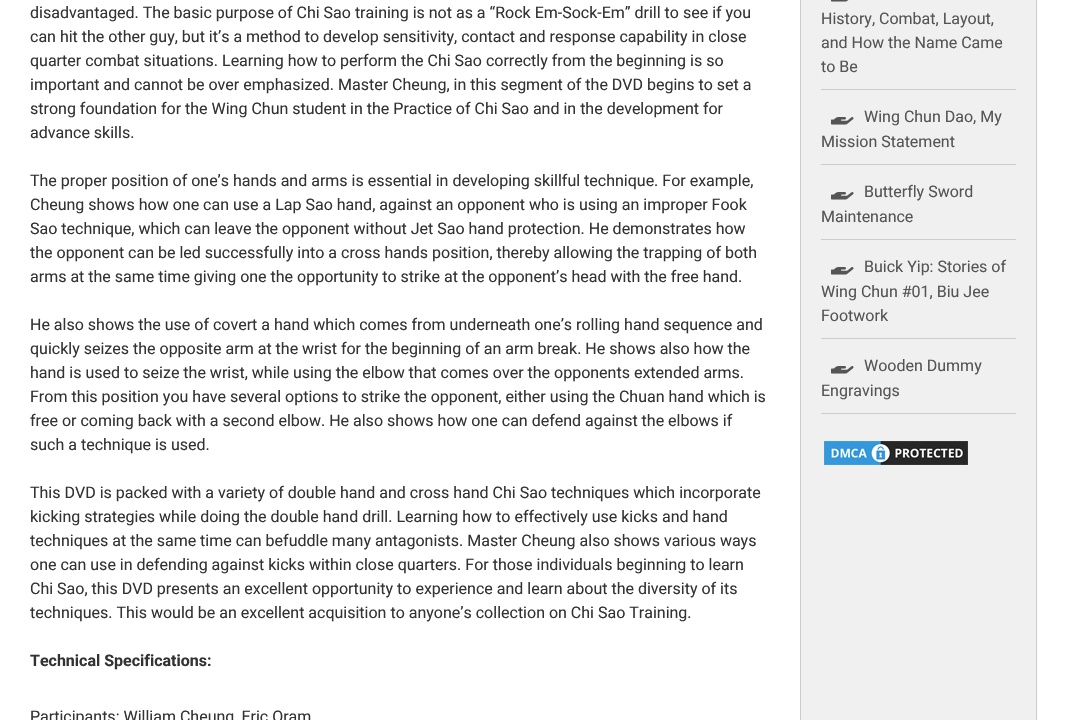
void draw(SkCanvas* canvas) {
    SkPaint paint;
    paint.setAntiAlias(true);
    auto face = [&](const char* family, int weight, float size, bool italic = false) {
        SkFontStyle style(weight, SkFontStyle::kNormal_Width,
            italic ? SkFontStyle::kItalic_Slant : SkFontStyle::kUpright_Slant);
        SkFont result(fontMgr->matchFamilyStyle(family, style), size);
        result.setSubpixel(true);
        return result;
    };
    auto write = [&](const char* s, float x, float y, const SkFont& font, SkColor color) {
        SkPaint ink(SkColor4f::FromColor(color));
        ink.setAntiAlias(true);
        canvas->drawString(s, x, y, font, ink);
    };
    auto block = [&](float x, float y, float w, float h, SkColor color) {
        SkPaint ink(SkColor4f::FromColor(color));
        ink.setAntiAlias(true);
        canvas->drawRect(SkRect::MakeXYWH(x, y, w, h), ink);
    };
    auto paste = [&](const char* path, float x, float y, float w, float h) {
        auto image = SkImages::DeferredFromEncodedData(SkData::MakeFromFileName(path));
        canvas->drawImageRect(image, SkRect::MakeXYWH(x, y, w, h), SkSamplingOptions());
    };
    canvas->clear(SK_ColorWHITE);
    auto kFont1 = face("Roboto", 400, 16);
    write("disadvantaged. The basic purpose of Chi Sao training is not as a “Rock Em-Sock-Em” drill to see if you", 30, 18, kFont1, SkColorSetRGB(51, 51, 51));
    write("can hit the other guy, but it’s a method to develop sensitivity, contact and response capability in close", 30, 42, kFont1, SkColorSetRGB(51, 51, 51));
    write("quarter combat situations. Learning how to perform the Chi Sao correctly from the beginning is so", 30, 66, kFont1, SkColorSetRGB(51, 51, 51));
    write("important and cannot be over emphasized. Master Cheung, in this segment of the DVD begins to set a", 30, 90, kFont1, SkColorSetRGB(51, 51, 51));
    write("strong foundation for the Wing Chun student in the Practice of Chi Sao and in the development for", 30, 114, kFont1, SkColorSetRGB(51, 51, 51));
    write("advance skills.", 30, 138, kFont1, SkColorSetRGB(51, 51, 51));
    write("The proper position of one’s hands and arms is essential in developing skillful technique. For example,", 30, 186, kFont1, SkColorSetRGB(51, 51, 51));
    write("Cheung shows how one can use a Lap Sao hand, against an opponent who is using an improper Fook", 30, 210, kFont1, SkColorSetRGB(51, 51, 51));
    write("Sao technique, which can leave the opponent without Jet Sao hand protection. He demonstrates how", 30, 234, kFont1, SkColorSetRGB(51, 51, 51));
    write("the opponent can be led successfully into a cross hands position, thereby allowing the trapping of both", 30, 258, kFont1, SkColorSetRGB(51, 51, 51));
    write("arms at the same time giving one the opportunity to strike at the opponent’s head with the free hand.", 30, 282, kFont1, SkColorSetRGB(51, 51, 51));
    write("He also shows the use of covert a hand which comes from underneath one’s rolling hand sequence and", 30, 330, kFont1, SkColorSetRGB(51, 51, 51));
    write("quickly seizes the opposite arm at the wrist for the beginning of an arm break. He shows also how the", 30, 354, kFont1, SkColorSetRGB(51, 51, 51));
    write("hand is used to seize the wrist, while using the elbow that comes over the opponents extended arms.", 30, 378, kFont1, SkColorSetRGB(51, 51, 51));
    write("From this position you have several options to strike the opponent, either using the Chuan hand which is", 30, 402, kFont1, SkColorSetRGB(51, 51, 51));
    write("free or coming back with a second elbow. He also shows how one can defend against the elbows if", 30, 426, kFont1, SkColorSetRGB(51, 51, 51));
    write("such a technique is used.", 30, 450, kFont1, SkColorSetRGB(51, 51, 51));
    write("This DVD is packed with a variety of double hand and cross hand Chi Sao techniques which incorporate", 30, 498, kFont1, SkColorSetRGB(51, 51, 51));
    write("kicking strategies while doing the double hand drill. Learning how to effectively use kicks and hand", 30, 522, kFont1, SkColorSetRGB(51, 51, 51));
    write("techniques at the same time can befuddle many antagonists. Master Cheung also shows various ways", 30, 546, kFont1, SkColorSetRGB(51, 51, 51));
    write("one can use in defending against kicks within close quarters. For those individuals beginning to learn", 30, 570, kFont1, SkColorSetRGB(51, 51, 51));
    write("Chi Sao, this DVD presents an excellent opportunity to experience and learn about the diversity of its", 30, 594, kFont1, SkColorSetRGB(51, 51, 51));
    write("techniques. This would be an excellent acquisition to anyone’s collection on Chi Sao Training.", 30, 618, kFont1, SkColorSetRGB(51, 51, 51));
    auto kFont2 = face("Roboto", 700, 16);
    write("Technical Specifications:", 30, 666, kFont2, SkColorSetRGB(51, 51, 51));
    write("Participants: William Cheung, Eric Oram", 30, 722, kFont1, SkColorSetRGB(51, 51, 51));
    paint.setColor(SkColorSetRGB(240, 240, 240));
    canvas->drawRect(SkRect::MakeXYWH(800.5f, -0.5f, 236, 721), paint);
    paint.setStyle(SkPaint::kStroke_Style);
    paint.setStrokeWidth(1);
    paint.setColor(SkColorSetRGB(204, 204, 204));
    canvas->drawRect(SkRect::MakeXYWH(800.5f, -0.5f, 236, 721), paint);
    block(821, 89, 195, 1, SkColorSetRGB(204, 204, 204));
    paste("pic1.png", 831, 0, 18, 2);
    write("History, Combat, Layout,", 821, 24, kFont1, SkColorSetRGB(85, 85, 85));
    write("and How the Name Came", 821, 48, kFont1, SkColorSetRGB(85, 85, 85));
    write("to Be", 821, 72, kFont1, SkColorSetRGB(85, 85, 85));
    block(821, 164, 195, 1, SkColorSetRGB(204, 204, 204));
    paste("pic2.png", 831, 117, 23, 8);
    write("Wing Chun Dao, My", 864, 122, kFont1, SkColorSetRGB(85, 85, 85));
    write("Mission Statement", 821, 147, kFont1, SkColorSetRGB(85, 85, 85));
    block(821, 239, 195, 1, SkColorSetRGB(204, 204, 204));
    paste("pic2.png", 831, 192, 23, 8);
    write("Butterfly Sword", 864, 197, kFont1, SkColorSetRGB(85, 85, 85));
    write("Maintenance", 821, 222, kFont1, SkColorSetRGB(85, 85, 85));
    block(821, 338, 195, 1, SkColorSetRGB(204, 204, 204));
    paste("pic2.png", 831, 267, 23, 8);
    write("Buick Yip: Stories of", 864, 272, kFont1, SkColorSetRGB(85, 85, 85));
    write("Wing Chun #01, Biu Jee", 821, 297, kFont1, SkColorSetRGB(85, 85, 85));
    write("Footwork", 821, 321, kFont1, SkColorSetRGB(85, 85, 85));
    block(821, 413, 195, 1, SkColorSetRGB(204, 204, 204));
    paste("pic2.png", 831, 366, 23, 8);
    write("Wooden Dummy", 864, 371, kFont1, SkColorSetRGB(85, 85, 85));
    write("Engravings", 821, 396, kFont1, SkColorSetRGB(85, 85, 85));
    paste("pic3.png", 824, 441, 144, 24);
}
